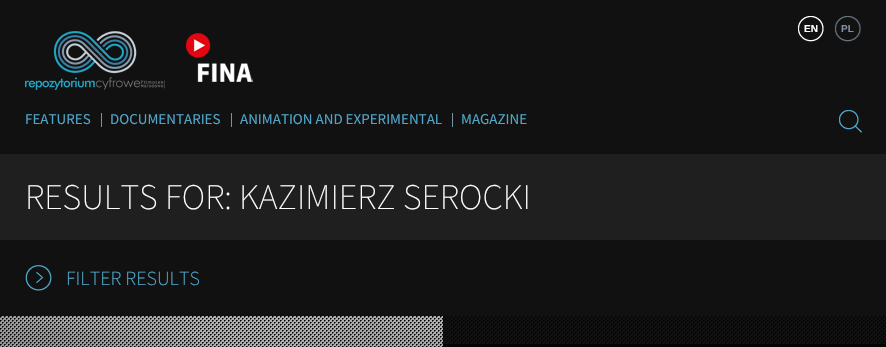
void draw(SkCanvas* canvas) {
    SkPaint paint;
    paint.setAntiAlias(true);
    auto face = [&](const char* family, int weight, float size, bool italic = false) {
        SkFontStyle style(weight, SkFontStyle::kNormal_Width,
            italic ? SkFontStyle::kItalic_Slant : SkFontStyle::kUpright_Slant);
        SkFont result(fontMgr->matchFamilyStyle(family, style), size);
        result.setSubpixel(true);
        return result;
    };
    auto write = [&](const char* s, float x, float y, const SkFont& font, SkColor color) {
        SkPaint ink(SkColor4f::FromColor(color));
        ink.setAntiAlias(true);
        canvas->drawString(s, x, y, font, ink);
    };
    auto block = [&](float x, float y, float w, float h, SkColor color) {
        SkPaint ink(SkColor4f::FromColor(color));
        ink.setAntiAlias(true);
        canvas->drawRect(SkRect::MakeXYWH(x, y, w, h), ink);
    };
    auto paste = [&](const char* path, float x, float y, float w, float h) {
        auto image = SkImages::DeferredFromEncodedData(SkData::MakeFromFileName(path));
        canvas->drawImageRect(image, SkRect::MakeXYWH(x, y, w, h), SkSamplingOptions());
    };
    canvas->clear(SkColorSetRGB(17, 17, 17));
    paste("pic1.png", 798, 16, 26, 26);
    paste("pic2.png", 834, 16, 27, 26);
    auto kFont1 = face("Liberation Sans", 700, 10);
    write("EN", 804, 32, kFont1, SK_ColorWHITE);
    write("PL", 841, 32, kFont1, SkColorSetRGB(128, 144, 162));
    paste("pic3.png", 25, 31, 140, 59);
    paste("pic4.png", 186, 33, 67, 49);
    auto kFont2 = face("Source Sans Pro", 400, 15);
    write("FEATURES", 25, 124, kFont2, SkColorSetRGB(80, 166, 201));
    write("DOCUMENTARIES", 110, 124, kFont2, SkColorSetRGB(80, 166, 201));
    block(101, 113, 1, 14, SkColorSetRGB(128, 144, 162));
    write("ANIMATION AND EXPERIMENTAL", 240, 124, kFont2, SkColorSetRGB(80, 166, 201));
    block(231, 113, 1, 14, SkColorSetRGB(128, 144, 162));
    write("MAGAZINE", 461, 124, kFont2, SkColorSetRGB(80, 166, 201));
    block(452, 113, 1, 14, SkColorSetRGB(128, 144, 162));
    paste("pic5.png", 839, 110, 23, 23);
    block(0, 154, 886, 86, SkColorSetRGB(31, 31, 31));
    auto kFont3 = face("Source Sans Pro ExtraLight", 200, 36);
    write("RESULTS FOR: KAZIMIERZ SEROCKI", 25, 209, kFont3, SK_ColorWHITE);
    paste("pic6.png", 25, 265, 27, 26);
    auto kFont4 = face("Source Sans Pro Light", 300, 20);
    write("FILTER RESULTS", 66, 285, kFont4, SkColorSetRGB(80, 166, 201));
    paste("pic7.png", 0, 316, 443, 31);
    paste("pic8.png", 0, 316, 443, 31);
    paste("pic9.png", 443, 316, 443, 28);
    block(443, 344, 443, 3, SkColorSetRGB(3, 3, 3));
}
